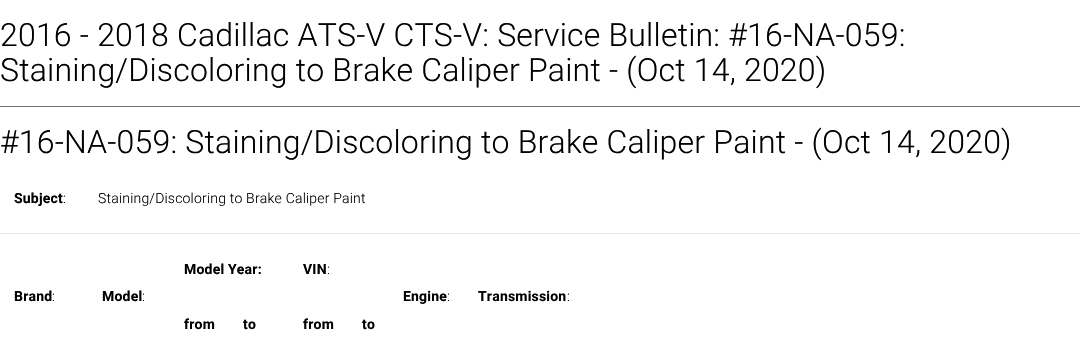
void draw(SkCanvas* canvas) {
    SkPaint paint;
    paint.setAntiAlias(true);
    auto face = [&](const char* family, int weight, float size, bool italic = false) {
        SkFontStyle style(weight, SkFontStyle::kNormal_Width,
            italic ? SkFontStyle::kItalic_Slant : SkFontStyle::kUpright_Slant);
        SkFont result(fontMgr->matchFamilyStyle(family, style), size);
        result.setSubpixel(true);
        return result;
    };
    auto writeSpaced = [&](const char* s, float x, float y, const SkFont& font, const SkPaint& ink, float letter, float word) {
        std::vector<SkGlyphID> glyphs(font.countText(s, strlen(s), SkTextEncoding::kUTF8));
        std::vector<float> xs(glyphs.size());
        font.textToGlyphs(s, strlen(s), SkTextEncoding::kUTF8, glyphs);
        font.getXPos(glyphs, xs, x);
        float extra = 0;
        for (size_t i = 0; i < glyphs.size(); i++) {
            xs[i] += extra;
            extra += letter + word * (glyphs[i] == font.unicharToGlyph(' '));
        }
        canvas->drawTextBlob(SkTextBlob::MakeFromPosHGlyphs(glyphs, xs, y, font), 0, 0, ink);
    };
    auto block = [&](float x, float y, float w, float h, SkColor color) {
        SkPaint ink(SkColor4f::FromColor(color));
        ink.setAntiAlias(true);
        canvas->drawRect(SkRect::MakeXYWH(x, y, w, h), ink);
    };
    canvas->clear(SK_ColorWHITE);
    auto kFont1 = face("Roboto", 300, 32);
    paint.setColor(SK_ColorBLACK);
    writeSpaced("2016 - 2018 Cadillac ATS-V CTS-V: Service Bulletin: #16-NA-059:", 0, 46, kFont1, paint, 0.2f, 0);
    writeSpaced("Staining/Discoloring to Brake Caliper Paint - (Oct 14, 2020)", 0, 81, kFont1, paint, 0.2f, 0);
    block(0, 106, 1080, 1, SkColorSetRGB(115, 115, 115));
    writeSpaced("#16-NA-059: Staining/Discoloring to Brake Caliper Paint - (Oct 14, 2020)", 0, 153, kFont1, paint, 0.2f, 0);
    auto kFont2 = face("Roboto", 700, 14);
    writeSpaced("Subject", 14, 203, kFont2, paint, 0.2f, 0);
    auto kFont3 = face("Roboto", 300, 14);
    writeSpaced(":", 63, 203, kFont3, paint, 0.2f, 0);
    writeSpaced("Staining/Discoloring to Brake Caliper Paint", 98, 203, kFont3, paint, 0.2f, 0);
    block(0, 233, 1080, 1, SkColorSetRGB(230, 230, 230));
    writeSpaced("Model Year:", 184, 274, kFont2, paint, 0.2f, 0);
    writeSpaced("VIN", 303, 274, kFont2, paint, 0.2f, 0);
    writeSpaced(":", 327, 274, kFont3, paint, 0.2f, 0);
    writeSpaced("Brand", 14, 301, kFont2, paint, 0.2f, 0);
    writeSpaced(":", 52, 301, kFont3, paint, 0.2f, 0);
    writeSpaced("Model", 102, 301, kFont2, paint, 0.2f, 0);
    writeSpaced(":", 142, 301, kFont3, paint, 0.2f, 0);
    writeSpaced("Engine", 403, 301, kFont2, paint, 0.2f, 0);
    writeSpaced(":", 447, 301, kFont3, paint, 0.2f, 0);
    writeSpaced("Transmission", 478, 301, kFont2, paint, 0.2f, 0);
    writeSpaced(":", 567, 301, kFont3, paint, 0.2f, 0);
    writeSpaced("from", 184, 329, kFont2, paint, 0.2f, 0);
    writeSpaced("to", 243, 329, kFont2, paint, 0.2f, 0);
    writeSpaced("from", 303, 329, kFont2, paint, 0.2f, 0);
    writeSpaced("to", 362, 329, kFont2, paint, 0.2f, 0);
}
